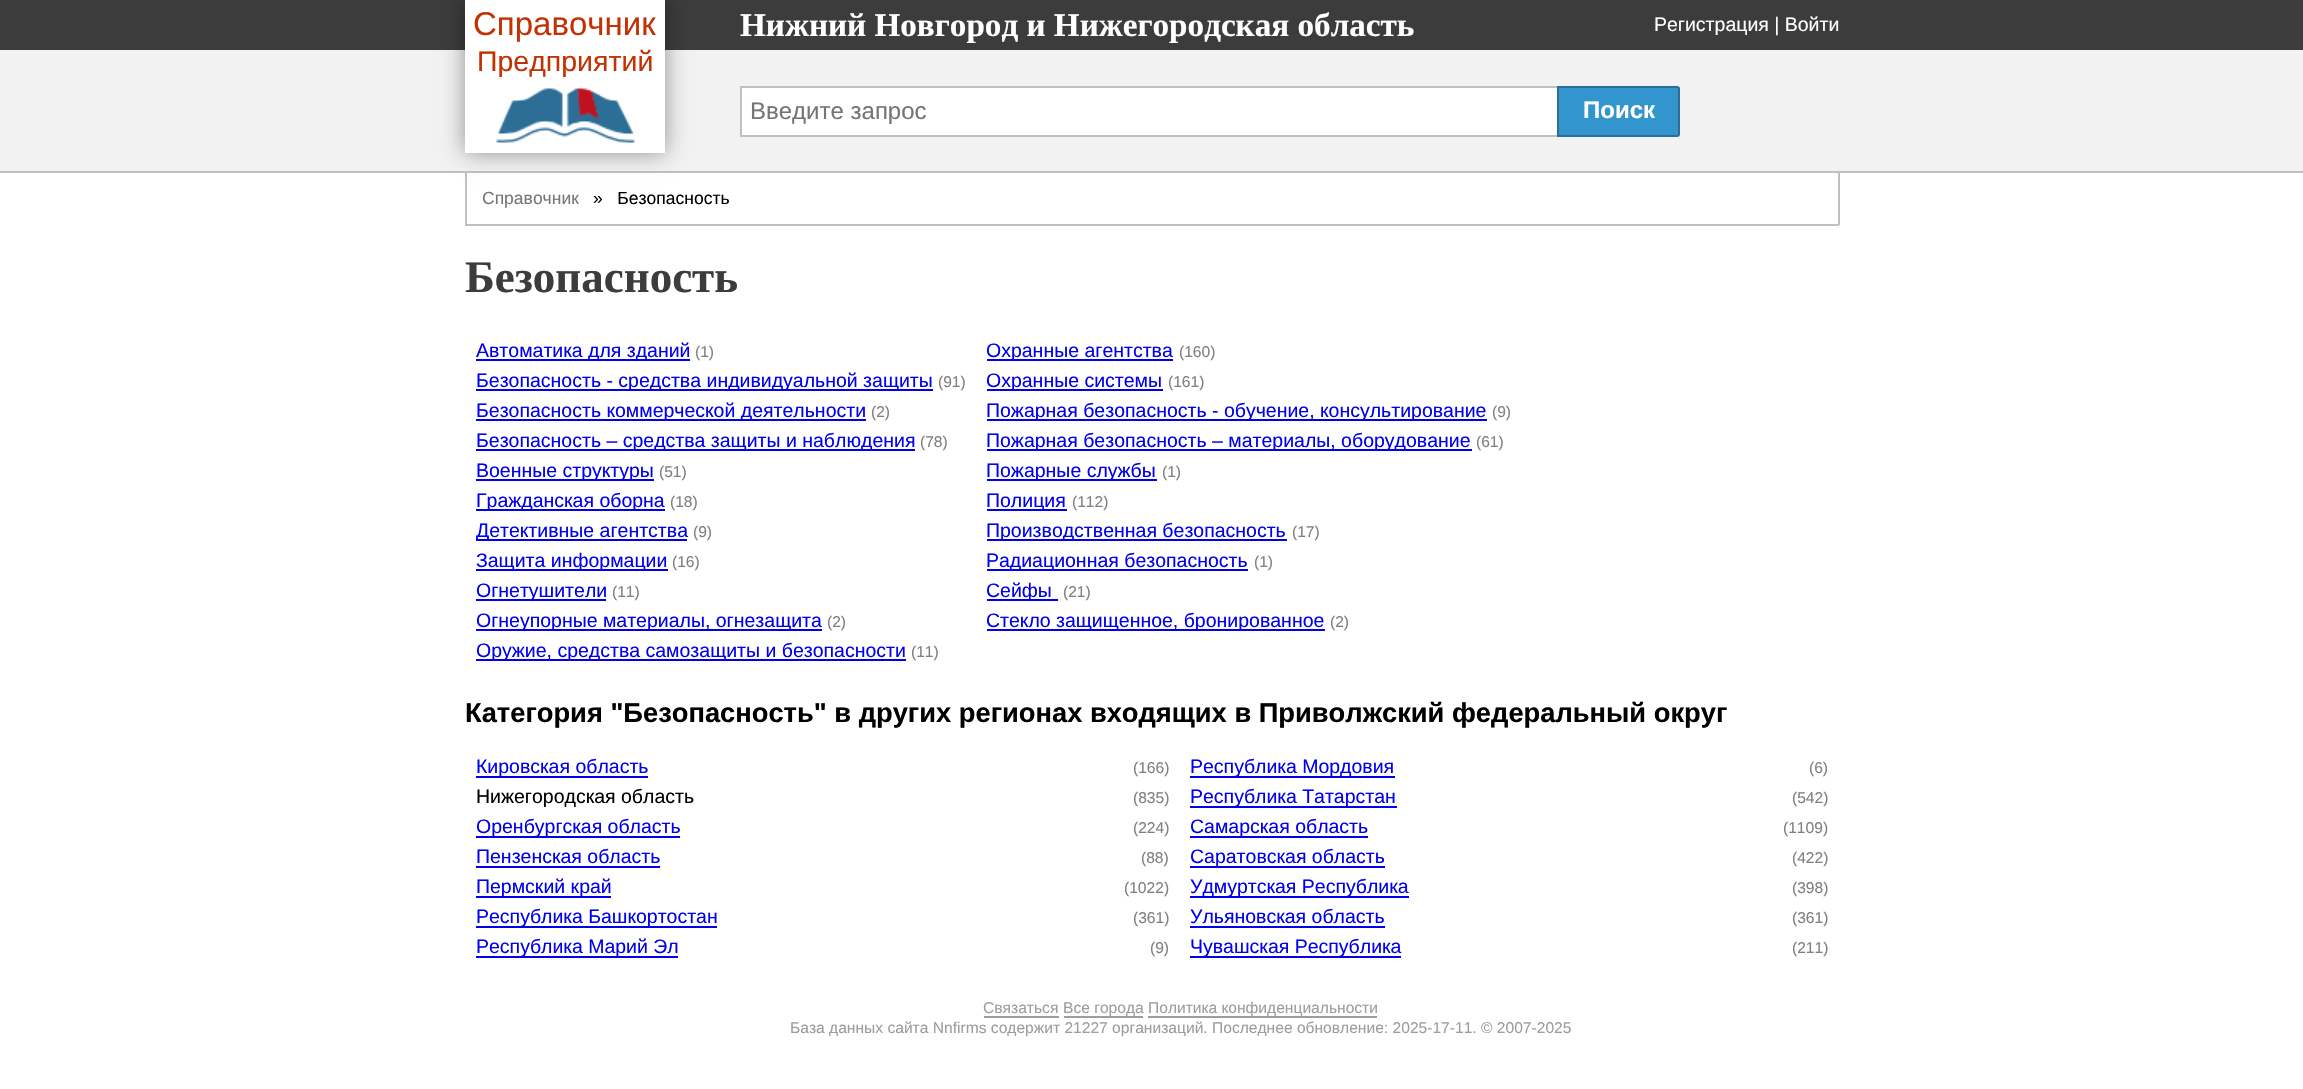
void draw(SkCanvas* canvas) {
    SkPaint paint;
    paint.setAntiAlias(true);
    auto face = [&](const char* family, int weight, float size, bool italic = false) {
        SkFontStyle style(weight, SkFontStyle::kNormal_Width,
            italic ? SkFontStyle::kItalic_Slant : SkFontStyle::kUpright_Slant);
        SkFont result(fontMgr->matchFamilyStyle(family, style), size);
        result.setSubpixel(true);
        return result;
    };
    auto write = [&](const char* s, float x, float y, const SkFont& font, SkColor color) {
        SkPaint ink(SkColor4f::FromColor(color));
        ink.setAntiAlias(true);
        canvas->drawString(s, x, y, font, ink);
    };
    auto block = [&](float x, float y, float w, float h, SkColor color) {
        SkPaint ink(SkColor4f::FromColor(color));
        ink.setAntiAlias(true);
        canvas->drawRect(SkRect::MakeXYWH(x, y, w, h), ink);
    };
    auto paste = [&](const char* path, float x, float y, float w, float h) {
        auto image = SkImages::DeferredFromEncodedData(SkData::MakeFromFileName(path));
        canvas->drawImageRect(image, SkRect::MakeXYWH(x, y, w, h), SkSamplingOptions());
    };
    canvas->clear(SK_ColorWHITE);
    block(0, 0, 2303, 50, SkColorSetRGB(60, 60, 60));
    block(0, 50, 2303, 121, SkColorSetRGB(242, 242, 242));
    block(0, 171, 2303, 2, SkColorSetRGB(192, 192, 192));
    block(1838, 173, 2, 52, SkColorSetRGB(192, 192, 192));
    block(465, 224, 1374, 2, SkColorSetRGB(192, 192, 192));
    block(465, 173, 2, 52, SkColorSetRGB(192, 192, 192));
    paint.setColor(SkColorSetARGB(102, 0, 0, 0));
    paint.setMaskFilter(SkMaskFilter::MakeBlur(kNormal_SkBlurStyle, 11));
    canvas->drawRect(SkRect::MakeXYWH(465, 0, 200, 153), paint);
    paint.setMaskFilter(nullptr);
    block(465, 0, 200, 153, SK_ColorWHITE);
    auto kFont1 = face("Liberation Sans", 400, 33);
    write("Справочник", 473, 35, kFont1, SkColorSetRGB(193, 50, 4));
    auto kFont2 = face("Liberation Sans", 400, 28.5f);
    write("Предприятий", 477, 71, kFont2, SkColorSetRGB(193, 50, 4));
    paste("pic1.png", 496, 88, 139, 55);
    auto kFont3 = face("Liberation Serif", 700, 33.15f);
    write("Нижний Новгород и Нижегородская область", 740, 36, kFont3, SK_ColorWHITE);
    auto kFont4 = face("Liberation Sans", 400, 19.5f);
    write("Регистрация | Войти", 1654, 31, kFont4, SK_ColorWHITE);
    block(742, 88, 815, 47, SK_ColorWHITE);
    block(740, 86, 817, 2, SkColorSetRGB(192, 192, 192));
    block(740, 135, 817, 2, SkColorSetRGB(192, 192, 192));
    block(740, 86, 2, 51, SkColorSetRGB(192, 192, 192));
    auto kFont5 = face("Liberation Sans", 400, 24);
    write("Введите запрос", 750, 119, kFont5, SkColorSetRGB(117, 117, 117));
    paint.setColor(SkColorSetRGB(51, 149, 205));
    canvas->drawPath(SkPathBuilder().moveTo(1558, 87).lineTo(1677, 87).cubicTo(1678, 87, 1679, 88, 1679, 89).lineTo(1679, 134).cubicTo(1679, 135, 1678, 136, 1677, 136).lineTo(1558, 136).close().detach(), paint);
    paint.setStyle(SkPaint::kStroke_Style);
    paint.setStrokeWidth(2);
    paint.setColor(SkColorSetRGB(44, 110, 150));
    canvas->drawPath(SkPathBuilder().moveTo(1558, 87).lineTo(1677, 87).cubicTo(1678, 87, 1679, 88, 1679, 89).lineTo(1679, 134).cubicTo(1679, 135, 1678, 136, 1677, 136).lineTo(1558, 136).close().detach(), paint);
    auto kFont6 = face("Liberation Sans", 700, 24);
    write("Поиск", 1583, 118, kFont6, SK_ColorWHITE);
    auto kFont7 = face("Liberation Sans", 400, 17.5f);
    write("Справочник", 482, 204, kFont7, SkColorSetRGB(117, 117, 117));
    write("»   Безопасность", 593, 204, kFont7, SK_ColorBLACK);
    auto kFont8 = face("Liberation Serif", 700, 45);
    write("Безопасность", 465, 292, kFont8, SkColorSetRGB(60, 60, 60));
    block(476, 359, 214, 2, SkColorSetRGB(0, 0, 238));
    write("Автоматика для зданий", 476, 357, kFont4, SkColorSetRGB(0, 0, 238));
    auto kFont9 = face("Liberation Sans", 400, 15.6f);
    write("(1)", 695, 357, kFont9, SkColorSetRGB(128, 128, 128));
    block(476, 389, 457, 2, SkColorSetRGB(0, 0, 238));
    write("Безопасность - средства индивидуальной защиты", 476, 387, kFont4, SkColorSetRGB(0, 0, 238));
    write("(91)", 938, 387, kFont9, SkColorSetRGB(128, 128, 128));
    block(476, 419, 390, 2, SkColorSetRGB(0, 0, 238));
    write("Безопасность коммерческой деятельности", 476, 417, kFont4, SkColorSetRGB(0, 0, 238));
    write("(2)", 871, 417, kFont9, SkColorSetRGB(128, 128, 128));
    block(476, 449, 439, 2, SkColorSetRGB(0, 0, 238));
    write("Безопасность – средства защиты и наблюдения", 476, 447, kFont4, SkColorSetRGB(0, 0, 238));
    write("(78)", 920, 447, kFont9, SkColorSetRGB(128, 128, 128));
    block(476, 479, 178, 2, SkColorSetRGB(0, 0, 238));
    write("Военные структуры", 476, 477, kFont4, SkColorSetRGB(0, 0, 238));
    write("(51)", 659, 477, kFont9, SkColorSetRGB(128, 128, 128));
    block(476, 509, 189, 2, SkColorSetRGB(0, 0, 238));
    write("Гражданская оборна", 476, 507, kFont4, SkColorSetRGB(0, 0, 238));
    write("(18)", 670, 507, kFont9, SkColorSetRGB(128, 128, 128));
    block(476, 539, 211, 2, SkColorSetRGB(0, 0, 238));
    write("Детективные агентства", 476, 537, kFont4, SkColorSetRGB(0, 0, 238));
    write("(9)", 693, 537, kFont9, SkColorSetRGB(128, 128, 128));
    block(476, 569, 192, 2, SkColorSetRGB(0, 0, 238));
    write("Защита информации", 476, 567, kFont4, SkColorSetRGB(0, 0, 238));
    write("(16)", 672, 567, kFont9, SkColorSetRGB(128, 128, 128));
    block(476, 599, 130, 2, SkColorSetRGB(0, 0, 238));
    write("Огнетушители", 476, 597, kFont4, SkColorSetRGB(0, 0, 238));
    write("(11)", 612, 597, kFont9, SkColorSetRGB(128, 128, 128));
    block(476, 629, 346, 2, SkColorSetRGB(0, 0, 238));
    write("Огнеупорные материалы, огнезащита", 476, 627, kFont4, SkColorSetRGB(0, 0, 238));
    write("(2)", 827, 627, kFont9, SkColorSetRGB(128, 128, 128));
    block(476, 659, 430, 2, SkColorSetRGB(0, 0, 238));
    write("Оружие, средства самозащиты и безопасности", 476, 657, kFont4, SkColorSetRGB(0, 0, 238));
    write("(11)", 911, 657, kFont9, SkColorSetRGB(128, 128, 128));
    block(987, 359, 186, 2, SkColorSetRGB(0, 0, 238));
    write("Охранные агентства", 986, 357, kFont4, SkColorSetRGB(0, 0, 238));
    write("(160)", 1179, 357, kFont9, SkColorSetRGB(128, 128, 128));
    block(987, 389, 176, 2, SkColorSetRGB(0, 0, 238));
    write("Охранные системы", 986, 387, kFont4, SkColorSetRGB(0, 0, 238));
    write("(161)", 1168, 387, kFont9, SkColorSetRGB(128, 128, 128));
    block(987, 419, 500, 2, SkColorSetRGB(0, 0, 238));
    write("Пожарная безопасность - обучение, консультирование", 986, 417, kFont4, SkColorSetRGB(0, 0, 238));
    write("(9)", 1492, 417, kFont9, SkColorSetRGB(128, 128, 128));
    block(987, 449, 485, 2, SkColorSetRGB(0, 0, 238));
    write("Пожарная безопасность – материалы, оборудование", 986, 447, kFont4, SkColorSetRGB(0, 0, 238));
    write("(61)", 1476, 447, kFont9, SkColorSetRGB(128, 128, 128));
    block(987, 479, 170, 2, SkColorSetRGB(0, 0, 238));
    write("Пожарные службы", 986, 477, kFont4, SkColorSetRGB(0, 0, 238));
    write("(1)", 1162, 477, kFont9, SkColorSetRGB(128, 128, 128));
    block(987, 509, 80, 2, SkColorSetRGB(0, 0, 238));
    write("Полиция", 986, 507, kFont4, SkColorSetRGB(0, 0, 238));
    write("(112)", 1072, 507, kFont9, SkColorSetRGB(128, 128, 128));
    block(987, 539, 300, 2, SkColorSetRGB(0, 0, 238));
    write("Производственная безопасность", 986, 537, kFont4, SkColorSetRGB(0, 0, 238));
    write("(17)", 1292, 537, kFont9, SkColorSetRGB(128, 128, 128));
    block(987, 569, 261, 2, SkColorSetRGB(0, 0, 238));
    write("Радиационная безопасность", 986, 567, kFont4, SkColorSetRGB(0, 0, 238));
    write("(1)", 1254, 567, kFont9, SkColorSetRGB(128, 128, 128));
    block(987, 599, 71, 2, SkColorSetRGB(0, 0, 238));
    write("Сейфы", 986, 597, kFont4, SkColorSetRGB(0, 0, 238));
    write("(21)", 1063, 597, kFont9, SkColorSetRGB(128, 128, 128));
    block(987, 629, 338, 2, SkColorSetRGB(0, 0, 238));
    write("Стекло защищенное, бронированное", 986, 627, kFont4, SkColorSetRGB(0, 0, 238));
    write("(2)", 1330, 627, kFont9, SkColorSetRGB(128, 128, 128));
    auto kFont10 = face("Liberation Sans", 700, 27.3f);
    write("Категория \"Безопасность\" в других регионах входящих в Приволжский федеральный округ", 465, 722, kFont10, SK_ColorBLACK);
    block(476, 776, 172, 2, SkColorSetRGB(0, 0, 238));
    write("Кировская область", 476, 773, kFont4, SkColorSetRGB(0, 0, 238));
    write("(166)", 1133, 773, kFont9, SkColorSetRGB(128, 128, 128));
    write("Нижегородская область", 476, 803, kFont4, SK_ColorBLACK);
    write("(835)", 1133, 803, kFont9, SkColorSetRGB(128, 128, 128));
    block(476, 836, 204, 2, SkColorSetRGB(0, 0, 238));
    write("Оренбургская область", 476, 833, kFont4, SkColorSetRGB(0, 0, 238));
    write("(224)", 1133, 833, kFont9, SkColorSetRGB(128, 128, 128));
    write("Пензенская область", 476, 863, kFont4, SkColorSetRGB(0, 0, 238));
    block(476, 866, 184, 2, SkColorSetRGB(0, 0, 238));
    write("(88)", 1141, 863, kFont9, SkColorSetRGB(128, 128, 128));
    block(476, 896, 135, 2, SkColorSetRGB(0, 0, 238));
    write("Пермский край", 476, 893, kFont4, SkColorSetRGB(0, 0, 238));
    write("(1022)", 1124, 893, kFont9, SkColorSetRGB(128, 128, 128));
    block(476, 926, 241, 2, SkColorSetRGB(0, 0, 238));
    write("Республика Башкортостан", 476, 923, kFont4, SkColorSetRGB(0, 0, 238));
    write("(361)", 1133, 923, kFont9, SkColorSetRGB(128, 128, 128));
    block(476, 956, 202, 2, SkColorSetRGB(0, 0, 238));
    write("Республика Марий Эл", 476, 953, kFont4, SkColorSetRGB(0, 0, 238));
    write("(9)", 1150, 953, kFont9, SkColorSetRGB(128, 128, 128));
    block(1190, 776, 205, 2, SkColorSetRGB(0, 0, 238));
    write("Республика Мордовия", 1190, 773, kFont4, SkColorSetRGB(0, 0, 238));
    write("(6)", 1809, 773, kFont9, SkColorSetRGB(128, 128, 128));
    block(1190, 806, 207, 2, SkColorSetRGB(0, 0, 238));
    write("Республика Татарстан", 1190, 803, kFont4, SkColorSetRGB(0, 0, 238));
    write("(542)", 1792, 803, kFont9, SkColorSetRGB(128, 128, 128));
    block(1190, 836, 178, 2, SkColorSetRGB(0, 0, 238));
    write("Самарская область", 1190, 833, kFont4, SkColorSetRGB(0, 0, 238));
    write("(1109)", 1783, 833, kFont9, SkColorSetRGB(128, 128, 128));
    block(1190, 866, 195, 2, SkColorSetRGB(0, 0, 238));
    write("Саратовская область", 1190, 863, kFont4, SkColorSetRGB(0, 0, 238));
    write("(422)", 1792, 863, kFont9, SkColorSetRGB(128, 128, 128));
    block(1190, 896, 219, 2, SkColorSetRGB(0, 0, 238));
    write("Удмуртская Республика", 1190, 893, kFont4, SkColorSetRGB(0, 0, 238));
    write("(398)", 1792, 893, kFont9, SkColorSetRGB(128, 128, 128));
    write("Ульяновская область", 1190, 923, kFont4, SkColorSetRGB(0, 0, 238));
    block(1190, 926, 195, 2, SkColorSetRGB(0, 0, 238));
    write("(361)", 1792, 923, kFont9, SkColorSetRGB(128, 128, 128));
    block(1190, 956, 211, 2, SkColorSetRGB(0, 0, 238));
    write("Чувашская Республика", 1190, 953, kFont4, SkColorSetRGB(0, 0, 238));
    write("(211)", 1792, 953, kFont9, SkColorSetRGB(128, 128, 128));
    write("Связаться", 983, 1013, kFont9, SkColorSetRGB(157, 157, 157));
    block(984, 1016, 75, 2, SkColorSetRGB(157, 157, 157));
    block(1064, 1016, 79, 2, SkColorSetRGB(157, 157, 157));
    write("Все города", 1063, 1013, kFont9, SkColorSetRGB(157, 157, 157));
    block(1148, 1016, 229, 2, SkColorSetRGB(157, 157, 157));
    write("Политика конфиденциальности", 1148, 1013, kFont9, SkColorSetRGB(157, 157, 157));
    write("База данных сайта Nnfirms содержит 21227 организаций. Последнее обновление: 2025-17-11. © 2007-2025", 790, 1033, kFont9, SkColorSetRGB(157, 157, 157));
}
